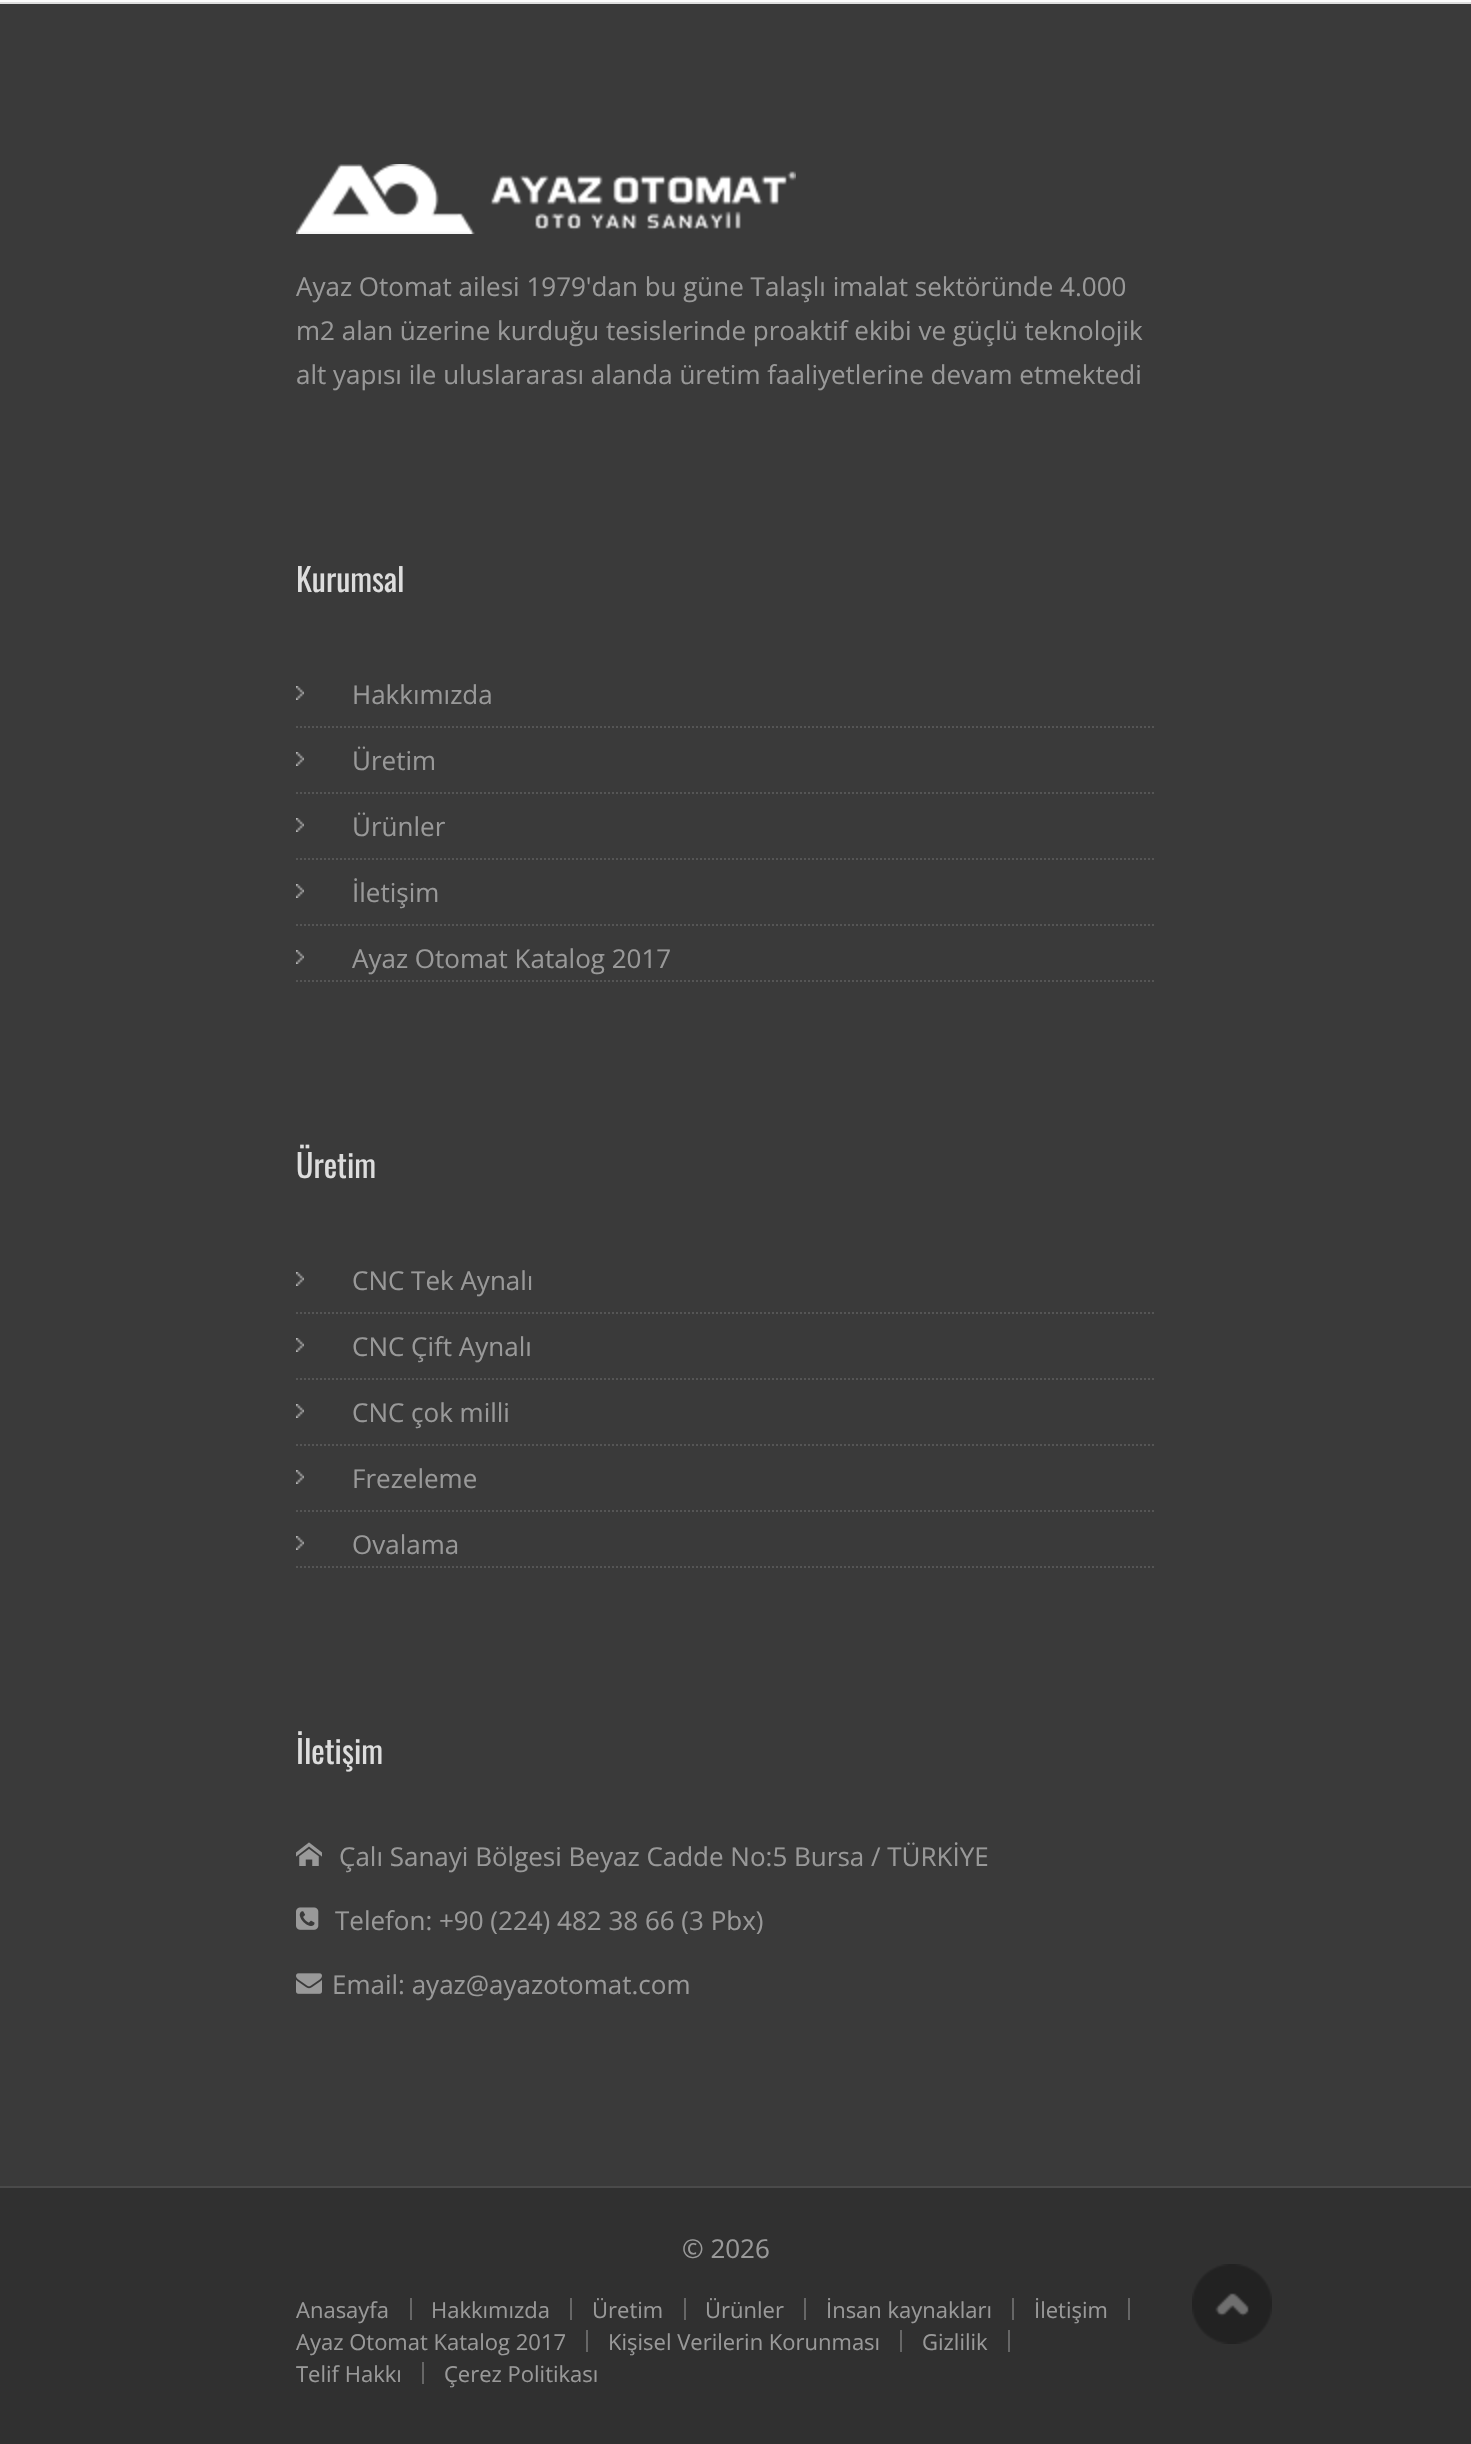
void draw(SkCanvas* canvas) {
    SkPaint paint;
    paint.setAntiAlias(true);
    auto face = [&](const char* family, int weight, float size, bool italic = false) {
        SkFontStyle style(weight, SkFontStyle::kNormal_Width,
            italic ? SkFontStyle::kItalic_Slant : SkFontStyle::kUpright_Slant);
        SkFont result(fontMgr->matchFamilyStyle(family, style), size);
        result.setSubpixel(true);
        return result;
    };
    auto write = [&](const char* s, float x, float y, const SkFont& font, SkColor color) {
        SkPaint ink(SkColor4f::FromColor(color));
        ink.setAntiAlias(true);
        canvas->drawString(s, x, y, font, ink);
    };
    auto block = [&](float x, float y, float w, float h, SkColor color) {
        SkPaint ink(SkColor4f::FromColor(color));
        ink.setAntiAlias(true);
        canvas->drawRect(SkRect::MakeXYWH(x, y, w, h), ink);
    };
    auto paste = [&](const char* path, float x, float y, float w, float h) {
        auto image = SkImages::DeferredFromEncodedData(SkData::MakeFromFileName(path));
        canvas->drawImageRect(image, SkRect::MakeXYWH(x, y, w, h), SkSamplingOptions());
    };
    canvas->clear(SkColorSetRGB(252, 252, 252));
    block(0, 2, 1471, 2, SkColorSetRGB(221, 221, 221));
    block(0, 4, 1471, 2182, SkColorSetRGB(58, 58, 58));
    paste("pic1.png", 296, 164, 500, 70);
    auto kFont1 = face("Open Sans", 400, 26);
    write("Ayaz Otomat ailesi 1979'dan bu güne Talaşlı imalat sektöründe 4.000", 296, 296, kFont1, SkColorSetRGB(153, 153, 153));
    write("m2 alan üzerine kurduğu tesislerinde proaktif ekibi ve güçlü teknolojik", 296, 340, kFont1, SkColorSetRGB(153, 153, 153));
    write("alt yapısı ile uluslararası alanda üretim faaliyetlerine devam etmektedi", 296, 384, kFont1, SkColorSetRGB(153, 153, 153));
    auto kFont2 = face("Oswald", 400, 32);
    write("Kurumsal", 296, 592, kFont2, SkColorSetRGB(221, 221, 221));
    paste("pic2.png", 296, 686, 8, 14);
    paint.setStyle(SkPaint::kStroke_Style);
    paint.setStrokeWidth(2);
    paint.setColor(SkColorSetRGB(85, 85, 85));
    paint.setPathEffect(SkDashPathEffect::Make({{2, 2}}, 0));
    canvas->drawPath(SkPathBuilder().moveTo(296, 727).lineTo(1156, 727).detach(), paint);
    paint.setPathEffect(nullptr);
    write("Hakkımızda", 352, 704, kFont1, SkColorSetRGB(153, 153, 153));
    paste("pic2.png", 296, 752, 8, 14);
    paint.setPathEffect(SkDashPathEffect::Make({{2, 2}}, 0));
    canvas->drawPath(SkPathBuilder().moveTo(296, 793).lineTo(1156, 793).detach(), paint);
    paint.setPathEffect(nullptr);
    write("Üretim", 352, 770, kFont1, SkColorSetRGB(153, 153, 153));
    paste("pic2.png", 296, 818, 8, 14);
    paint.setPathEffect(SkDashPathEffect::Make({{2, 2}}, 0));
    canvas->drawPath(SkPathBuilder().moveTo(296, 859).lineTo(1156, 859).detach(), paint);
    paint.setPathEffect(nullptr);
    write("Ürünler", 352, 836, kFont1, SkColorSetRGB(153, 153, 153));
    paste("pic2.png", 296, 884, 8, 14);
    paint.setPathEffect(SkDashPathEffect::Make({{2, 2}}, 0));
    canvas->drawPath(SkPathBuilder().moveTo(296, 925).lineTo(1156, 925).detach(), paint);
    paint.setPathEffect(nullptr);
    write("İletişim", 352, 902, kFont1, SkColorSetRGB(153, 153, 153));
    paste("pic2.png", 296, 950, 8, 14);
    paint.setPathEffect(SkDashPathEffect::Make({{2, 2}}, 0));
    canvas->drawPath(SkPathBuilder().moveTo(296, 981).lineTo(1156, 981).detach(), paint);
    paint.setPathEffect(nullptr);
    write("Ayaz Otomat Katalog 2017", 352, 968, kFont1, SkColorSetRGB(153, 153, 153));
    write("Üretim", 296, 1178, kFont2, SkColorSetRGB(221, 221, 221));
    paste("pic2.png", 296, 1272, 8, 14);
    paint.setPathEffect(SkDashPathEffect::Make({{2, 2}}, 0));
    canvas->drawPath(SkPathBuilder().moveTo(296, 1313).lineTo(1156, 1313).detach(), paint);
    paint.setPathEffect(nullptr);
    write("CNC Tek Aynalı", 352, 1290, kFont1, SkColorSetRGB(153, 153, 153));
    paste("pic2.png", 296, 1338, 8, 14);
    paint.setPathEffect(SkDashPathEffect::Make({{2, 2}}, 0));
    canvas->drawPath(SkPathBuilder().moveTo(296, 1379).lineTo(1156, 1379).detach(), paint);
    paint.setPathEffect(nullptr);
    write("CNC Çift Aynalı", 352, 1356, kFont1, SkColorSetRGB(153, 153, 153));
    paste("pic2.png", 296, 1404, 8, 14);
    paint.setPathEffect(SkDashPathEffect::Make({{2, 2}}, 0));
    canvas->drawPath(SkPathBuilder().moveTo(296, 1445).lineTo(1156, 1445).detach(), paint);
    paint.setPathEffect(nullptr);
    write("CNC çok milli", 352, 1422, kFont1, SkColorSetRGB(153, 153, 153));
    paste("pic2.png", 296, 1470, 8, 14);
    paint.setPathEffect(SkDashPathEffect::Make({{2, 2}}, 0));
    canvas->drawPath(SkPathBuilder().moveTo(296, 1511).lineTo(1156, 1511).detach(), paint);
    paint.setPathEffect(nullptr);
    write("Frezeleme", 352, 1488, kFont1, SkColorSetRGB(153, 153, 153));
    paste("pic2.png", 296, 1536, 8, 14);
    paint.setPathEffect(SkDashPathEffect::Make({{2, 2}}, 0));
    canvas->drawPath(SkPathBuilder().moveTo(296, 1567).lineTo(1156, 1567).detach(), paint);
    paint.setPathEffect(nullptr);
    write("Ovalama", 352, 1554, kFont1, SkColorSetRGB(153, 153, 153));
    write("İletişim", 296, 1764, kFont2, SkColorSetRGB(221, 221, 221));
    paste("pic3.png", 296, 1842, 26, 24);
    write("Çalı Sanayi Bölgesi Beyaz Cadde No:5 Bursa / TÜRKİYE", 339, 1866, kFont1, SkColorSetRGB(153, 153, 153));
    paste("pic4.png", 296, 1907, 23, 23);
    write("Telefon: +90 (224) 482 38 66 (3 Pbx)", 335, 1930, kFont1, SkColorSetRGB(153, 153, 153));
    paste("pic5.png", 296, 1973, 26, 21);
    write("Email: ayaz@ayazotomat.com", 332, 1994, kFont1, SkColorSetRGB(153, 153, 153));
    block(0, 2188, 1471, 256, SkColorSetRGB(48, 48, 48));
    block(0, 2186, 1471, 2, SkColorSetRGB(74, 74, 74));
    write("© 2026", 682, 2258, kFont1, SkColorSetRGB(153, 153, 153));
    block(410, 2298, 2, 22, SkColorSetRGB(102, 102, 102));
    auto kFont3 = face("Open Sans", 400, 22);
    write("Anasayfa", 296, 2318, kFont3, SkColorSetRGB(153, 153, 153));
    block(570, 2298, 2, 22, SkColorSetRGB(102, 102, 102));
    write("Hakkımızda", 431, 2318, kFont3, SkColorSetRGB(153, 153, 153));
    block(684, 2298, 2, 22, SkColorSetRGB(102, 102, 102));
    write("Üretim", 592, 2318, kFont3, SkColorSetRGB(153, 153, 153));
    block(804, 2298, 2, 22, SkColorSetRGB(102, 102, 102));
    write("Ürünler", 705, 2318, kFont3, SkColorSetRGB(153, 153, 153));
    block(1012, 2298, 2, 22, SkColorSetRGB(102, 102, 102));
    write("İnsan kaynakları", 826, 2318, kFont3, SkColorSetRGB(153, 153, 153));
    block(1128, 2298, 2, 22, SkColorSetRGB(102, 102, 102));
    write("İletişim", 1034, 2318, kFont3, SkColorSetRGB(153, 153, 153));
    block(586, 2330, 2, 22, SkColorSetRGB(102, 102, 102));
    write("Ayaz Otomat Katalog 2017", 296, 2350, kFont3, SkColorSetRGB(153, 153, 153));
    block(900, 2330, 2, 22, SkColorSetRGB(102, 102, 102));
    write("Kişisel Verilerin Korunması", 608, 2350, kFont3, SkColorSetRGB(153, 153, 153));
    block(1008, 2330, 2, 22, SkColorSetRGB(102, 102, 102));
    write("Gizlilik", 922, 2350, kFont3, SkColorSetRGB(153, 153, 153));
    block(422, 2362, 2, 22, SkColorSetRGB(102, 102, 102));
    write("Telif Hakkı", 296, 2382, kFont3, SkColorSetRGB(153, 153, 153));
    write("Çerez Politikası", 444, 2382, kFont3, SkColorSetRGB(153, 153, 153));
    paste("pic6.png", 1192, 2264, 80, 80);
}
